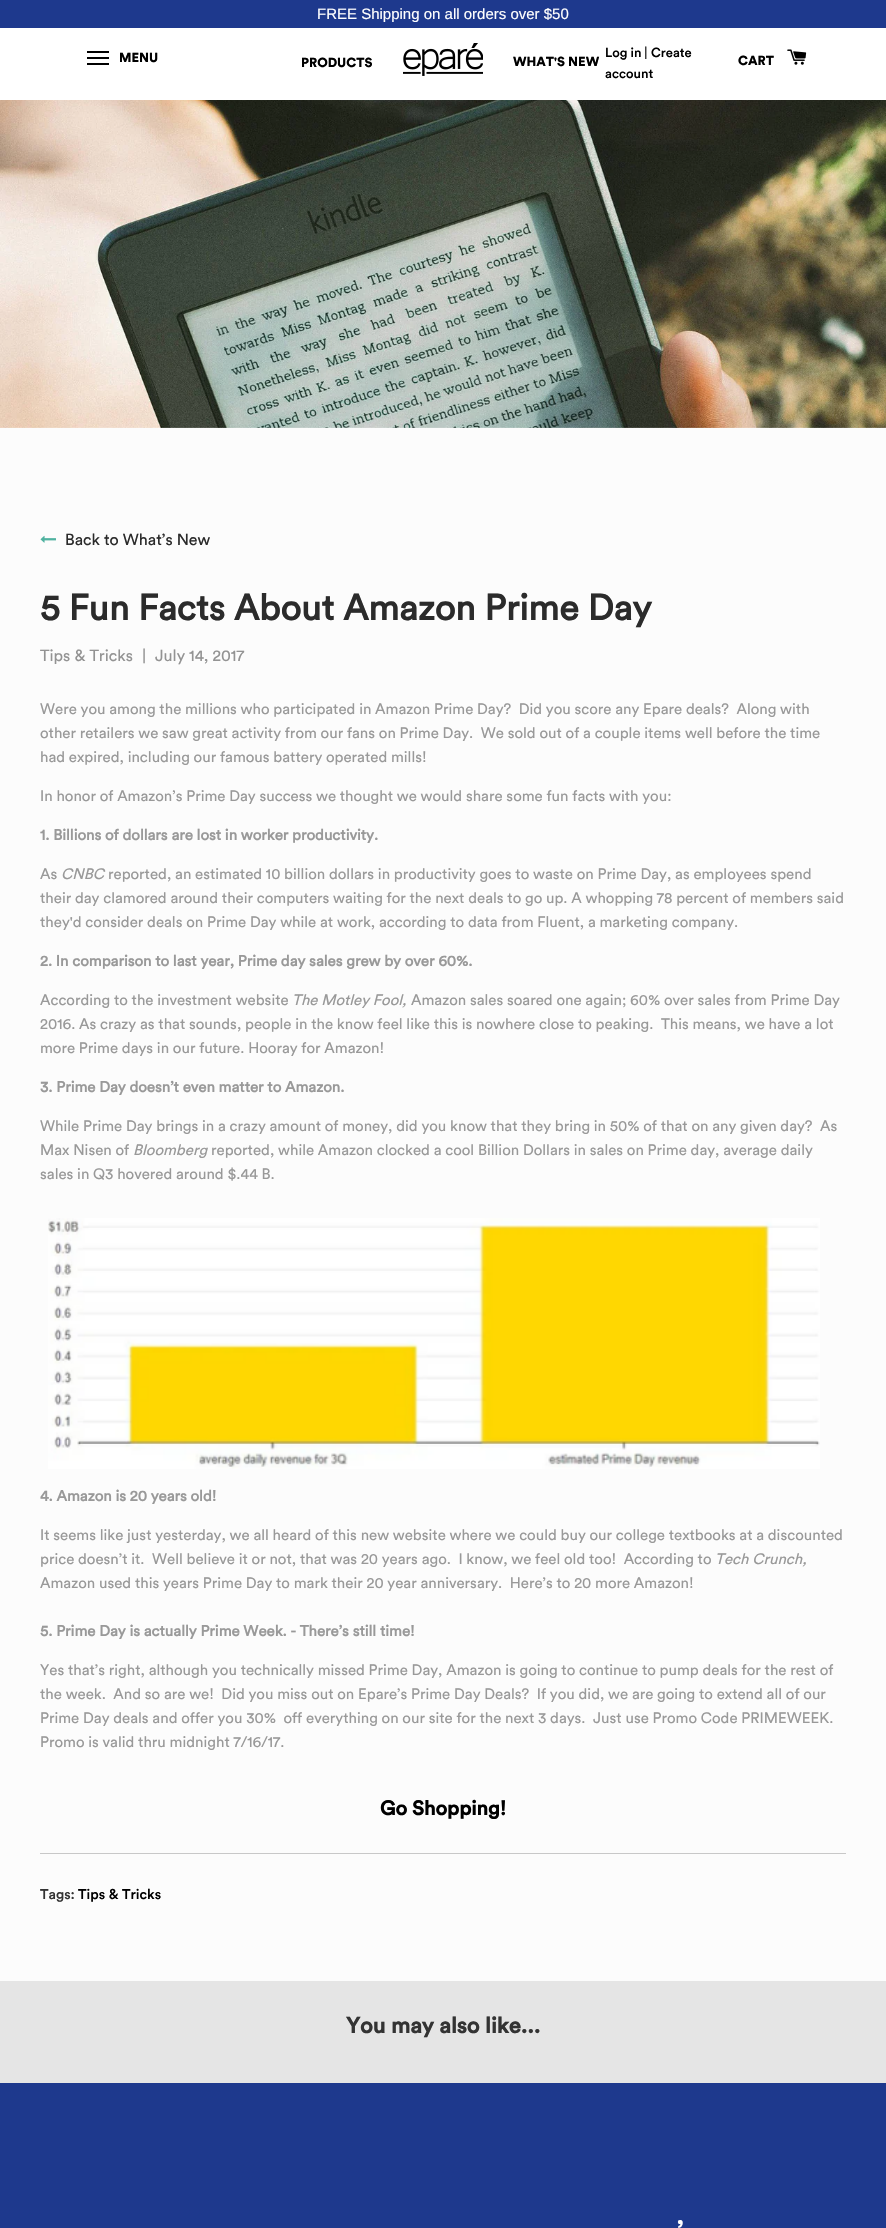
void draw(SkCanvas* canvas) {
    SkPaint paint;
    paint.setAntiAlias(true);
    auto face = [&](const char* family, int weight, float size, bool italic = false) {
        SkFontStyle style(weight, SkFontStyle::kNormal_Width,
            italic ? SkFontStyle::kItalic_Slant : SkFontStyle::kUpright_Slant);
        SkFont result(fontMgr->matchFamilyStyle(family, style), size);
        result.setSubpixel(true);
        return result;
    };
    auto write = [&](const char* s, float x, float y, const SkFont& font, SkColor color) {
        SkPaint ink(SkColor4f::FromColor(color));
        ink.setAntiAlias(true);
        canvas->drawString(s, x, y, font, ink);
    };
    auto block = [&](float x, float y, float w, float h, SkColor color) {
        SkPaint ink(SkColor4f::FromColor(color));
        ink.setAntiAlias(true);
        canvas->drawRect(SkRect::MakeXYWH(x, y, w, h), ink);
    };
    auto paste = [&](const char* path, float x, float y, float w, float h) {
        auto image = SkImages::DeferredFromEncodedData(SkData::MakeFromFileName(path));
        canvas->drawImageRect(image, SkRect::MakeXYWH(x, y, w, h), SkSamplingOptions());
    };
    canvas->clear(SK_ColorWHITE);
    block(0, 0, 886, 28, SkColorSetRGB(30, 57, 141));
    auto kFont1 = face("Liberation Sans", 400, 15);
    write("FREE Shipping on all orders over $50", 317, 19, kFont1, SK_ColorWHITE);
    block(87, 57, 22, 2, SK_ColorBLACK);
    block(87, 51, 22, 2, SK_ColorBLACK);
    block(87, 63, 22, 2, SK_ColorBLACK);
    auto kFont2 = face("Circular", 900, 13);
    write("MENU", 119, 62, kFont2, SK_ColorBLACK);
    write("PRODUCTS", 301, 67, kFont2, SK_ColorBLACK);
    paste("pic1.png", 403, 43, 80, 33);
    write("WHAT'S NEW", 513, 66, kFont2, SK_ColorBLACK);
    auto kFont3 = face("Circular", 500, 13);
    write("Log in", 605, 57, kFont3, SK_ColorBLACK);
    write("|", 644, 57, kFont3, SkColorSetRGB(51, 51, 51));
    write("Create", 651, 57, kFont3, SK_ColorBLACK);
    write("account", 605, 78, kFont3, SK_ColorBLACK);
    write("CART", 738, 65, kFont2, SK_ColorBLACK);
    paste("pic2.png", 787, 49, 20, 16);
    paste("pic3.png", 0, 100, 886, 328);
    block(0, 428, 886, 1553, SkColorSetRGB(252, 252, 252));
    paste("pic4.png", 40, 535, 16, 8);
    auto kFont4 = face("Circular", 400, 16);
    write("Back to What’s New", 65, 545, kFont4, SkColorSetRGB(43, 43, 43));
    auto kFont5 = face("Circular", 700, 36);
    write("5 Fun Facts About Amazon Prime Day", 40, 620, kFont5, SkColorSetRGB(43, 43, 43));
    write("Tips & Tricks", 40, 661, kFont4, SkColorSetRGB(147, 147, 147));
    write("|", 142, 661, kFont4, SkColorSetRGB(147, 147, 147));
    write("July 14, 2017", 155, 661, kFont4, SkColorSetRGB(147, 147, 147));
    auto kFont6 = face("Circular", 400, 15);
    write("Were you among the millions who participated in Amazon Prime Day?  Did you score any Epare deals?  Along with", 40, 714, kFont6, SkColorSetRGB(153, 153, 153));
    write("other retailers we saw great activity from our fans on Prime Day.  We sold out of a couple items well before the time", 40, 738, kFont6, SkColorSetRGB(153, 153, 153));
    write("had expired, including our famous battery operated mills!", 40, 762, kFont6, SkColorSetRGB(153, 153, 153));
    write("In honor of Amazon’s Prime Day success we thought we would share some fun facts with you:", 40, 801, kFont6, SkColorSetRGB(153, 153, 153));
    auto kFont7 = face("Circular", 700, 15);
    write("1. Billions of dollars are lost in worker productivity.", 40, 840, kFont7, SkColorSetRGB(153, 153, 153));
    write("As", 40, 879, kFont6, SkColorSetRGB(153, 153, 153));
    auto kFont8 = face("Circular", 400, 15, true);
    write("CNBC", 61, 879, kFont8, SkColorSetRGB(153, 153, 153));
    write("reported, an estimated 10 billion dollars in productivity goes to waste on Prime Day, as employees spend", 108, 879, kFont6, SkColorSetRGB(153, 153, 153));
    write("their day clamored around their computers waiting for the next deals to go up. A whopping 78 percent of members said", 40, 903, kFont6, SkColorSetRGB(153, 153, 153));
    write("they'd consider deals on Prime Day while at work, according to data from Fluent, a marketing company.", 40, 927, kFont6, SkColorSetRGB(153, 153, 153));
    write("2. In comparison to last year, Prime day sales grew by over 60%.", 40, 966, kFont7, SkColorSetRGB(153, 153, 153));
    write("According to the investment website", 40, 1005, kFont6, SkColorSetRGB(153, 153, 153));
    write("The Motley Fool,", 292, 1005, kFont8, SkColorSetRGB(153, 153, 153));
    write("Amazon sales soared one again; 60% over sales from Prime Day", 411, 1005, kFont6, SkColorSetRGB(153, 153, 153));
    write("2016. As crazy as that sounds, people in the know feel like this is nowhere close to peaking.  This means, we have a lot", 40, 1029, kFont6, SkColorSetRGB(153, 153, 153));
    write("more Prime days in our future. Hooray for Amazon!", 40, 1053, kFont6, SkColorSetRGB(153, 153, 153));
    write("3. Prime Day doesn’t even matter to Amazon.", 40, 1092, kFont7, SkColorSetRGB(153, 153, 153));
    write("While Prime Day brings in a crazy amount of money, did you know that they bring in 50% of that on any given day?  As", 40, 1131, kFont6, SkColorSetRGB(153, 153, 153));
    write("Max Nisen of", 40, 1155, kFont6, SkColorSetRGB(153, 153, 153));
    write("Bloomberg", 133, 1155, kFont8, SkColorSetRGB(153, 153, 153));
    write("reported, while Amazon clocked a cool Billion Dollars in sales on Prime day, average daily", 211, 1155, kFont6, SkColorSetRGB(153, 153, 153));
    write("sales in Q3 hovered around $.44 B.", 40, 1179, kFont6, SkColorSetRGB(153, 153, 153));
    paste("pic5.png", 48, 1218, 772, 251);
    write("4. Amazon is 20 years old!", 40, 1501, kFont7, SkColorSetRGB(153, 153, 153));
    write("It seems like just yesterday, we all heard of this new website where we could buy our college textbooks at a discounted", 40, 1540, kFont6, SkColorSetRGB(153, 153, 153));
    write("price doesn’t it.  Well believe it or not, that was 20 years ago.  I know, we feel old too!  According to", 40, 1564, kFont6, SkColorSetRGB(153, 153, 153));
    write("Tech Crunch,", 715, 1564, kFont8, SkColorSetRGB(153, 153, 153));
    write("Amazon used this years Prime Day to mark their 20 year anniversary.  Here’s to 20 more Amazon!", 40, 1588, kFont6, SkColorSetRGB(153, 153, 153));
    write("5. Prime Day is actually Prime Week. - There’s still time!", 40, 1636, kFont7, SkColorSetRGB(153, 153, 153));
    write("Yes that’s right, although you technically missed Prime Day, Amazon is going to continue to pump deals for the rest of", 40, 1675, kFont6, SkColorSetRGB(153, 153, 153));
    write("the week.  And so are we!  Did you miss out on Epare’s Prime Day Deals?  If you did, we are going to extend all of our", 40, 1699, kFont6, SkColorSetRGB(153, 153, 153));
    write("Prime Day deals and offer you 30%  off everything on our site for the next 3 days.  Just use Promo Code PRIMEWEEK.", 40, 1723, kFont6, SkColorSetRGB(153, 153, 153));
    write("Promo is valid thru midnight 7/16/17.", 40, 1747, kFont6, SkColorSetRGB(153, 153, 153));
    auto kFont9 = face("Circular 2", 700, 20);
    write("Go Shopping!", 380, 1815, kFont9, SK_ColorBLACK);
    block(40, 1853, 806, 1, SkColorSetRGB(200, 200, 200));
    auto kFont10 = face("Circular", 500, 14);
    write("Tags:", 40, 1899, kFont10, SkColorSetRGB(51, 51, 51));
    write("Tips & Tricks", 78, 1899, kFont10, SK_ColorBLACK);
    block(0, 1981, 886, 102, SkColorSetRGB(229, 229, 229));
    auto kFont11 = face("Circular 2", 700, 22);
    write("You may also like...", 346, 2033, kFont11, SkColorSetRGB(51, 51, 51));
    block(0, 2083, 886, 145, SkColorSetRGB(30, 57, 141));
    auto kFont12 = face("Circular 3", 700, 28);
    write("’", 677, 2240, kFont12, SK_ColorWHITE);
}
